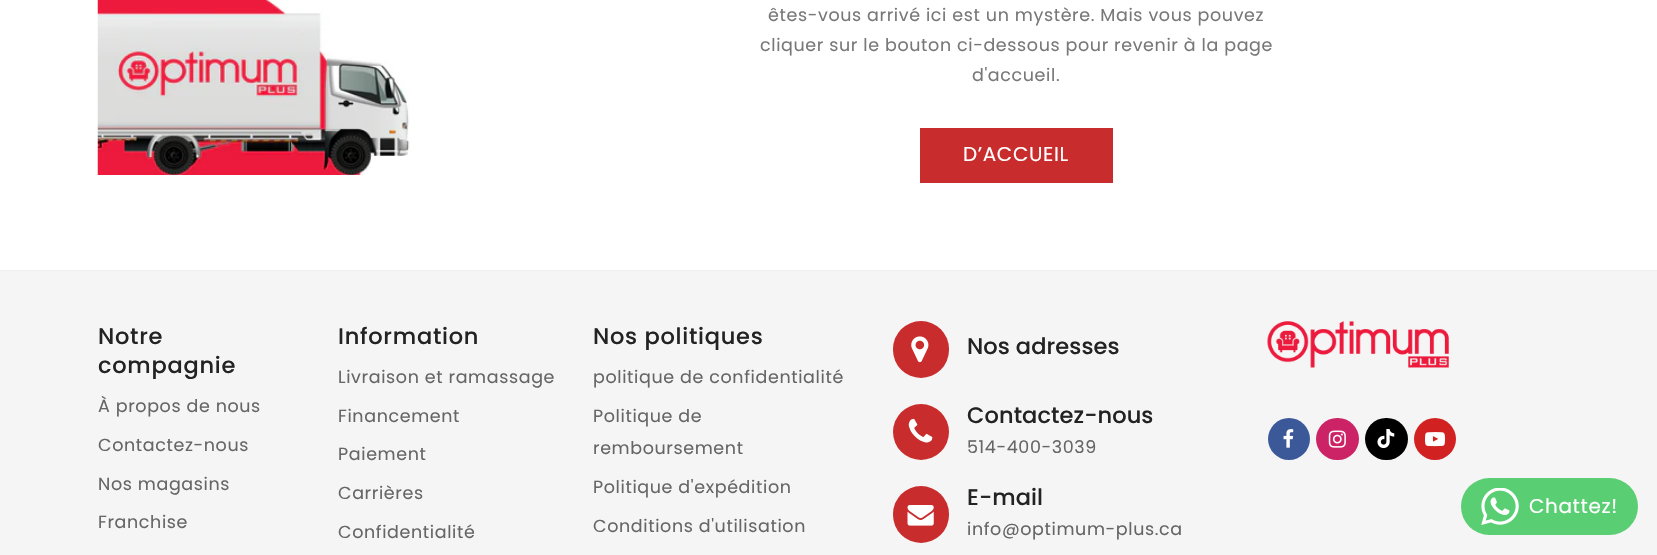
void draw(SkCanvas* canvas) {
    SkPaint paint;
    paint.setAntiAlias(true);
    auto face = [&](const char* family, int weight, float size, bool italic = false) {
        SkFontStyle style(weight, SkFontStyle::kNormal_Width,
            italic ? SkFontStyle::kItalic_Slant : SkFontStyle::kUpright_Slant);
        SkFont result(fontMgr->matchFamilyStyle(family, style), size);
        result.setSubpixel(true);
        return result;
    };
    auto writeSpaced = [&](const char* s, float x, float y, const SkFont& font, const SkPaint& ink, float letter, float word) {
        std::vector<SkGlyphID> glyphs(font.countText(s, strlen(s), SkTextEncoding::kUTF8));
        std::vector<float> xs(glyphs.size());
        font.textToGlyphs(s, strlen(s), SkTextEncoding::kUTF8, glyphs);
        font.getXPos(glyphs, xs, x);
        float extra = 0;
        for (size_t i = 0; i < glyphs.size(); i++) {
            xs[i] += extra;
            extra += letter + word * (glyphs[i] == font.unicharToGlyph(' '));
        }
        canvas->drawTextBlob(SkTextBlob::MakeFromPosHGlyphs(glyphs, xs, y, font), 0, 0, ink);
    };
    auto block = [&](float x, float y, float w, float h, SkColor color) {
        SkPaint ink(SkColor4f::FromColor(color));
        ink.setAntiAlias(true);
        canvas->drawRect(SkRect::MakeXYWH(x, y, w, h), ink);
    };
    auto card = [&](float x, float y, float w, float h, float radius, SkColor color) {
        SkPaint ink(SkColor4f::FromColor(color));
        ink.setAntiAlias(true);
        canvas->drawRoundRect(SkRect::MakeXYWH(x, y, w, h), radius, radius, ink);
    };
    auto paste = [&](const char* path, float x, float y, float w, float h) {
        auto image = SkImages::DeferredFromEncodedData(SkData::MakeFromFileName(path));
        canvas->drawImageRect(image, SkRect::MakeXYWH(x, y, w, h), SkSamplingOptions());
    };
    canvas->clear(SK_ColorWHITE);
    paste("pic1.png", 97, 0, 313, 175);
    auto kFont1 = face("Poppins", 400, 17.5f);
    paint.setColor(SkColorSetRGB(120, 120, 120));
    writeSpaced("êtes-vous arrivé ici est un mystère. Mais vous pouvez", 768, 21, kFont1, paint, 0.62f, 0);
    writeSpaced("cliquer sur le bouton ci-dessous pour revenir à la page", 760, 51, kFont1, paint, 0.62f, 0);
    writeSpaced("d'accueil.", 972, 81, kFont1, paint, 0.62f, 0);
    block(920, 128, 193, 55, SkColorSetRGB(201, 44, 44));
    auto kFont2 = face("Poppins", 400, 20);
    paint.setColor(SK_ColorWHITE);
    writeSpaced("D’ACCUEIL", 963, 161, kFont2, paint, 0.62f, 0);
    block(0, 271, 1657, 284, SkColorSetRGB(245, 245, 245));
    block(0, 270, 1657, 1, SkColorSetRGB(238, 238, 238));
    auto kFont3 = face("Poppins", 500, 22.5f);
    paint.setColor(SkColorSetRGB(35, 35, 35));
    writeSpaced("Notre", 98, 344, kFont3, paint, 0.75f, 0);
    writeSpaced("compagnie", 98, 373, kFont3, paint, 0.75f, 0);
    paint.setColor(SkColorSetRGB(102, 102, 102));
    writeSpaced("À propos de nous", 98, 412, kFont1, paint, 0.62f, 0);
    writeSpaced("Contactez-nous", 98, 451, kFont1, paint, 0.62f, 0);
    writeSpaced("Nos magasins", 98, 490, kFont1, paint, 0.62f, 0);
    writeSpaced("Franchise", 98, 528, kFont1, paint, 0.62f, 0);
    paint.setColor(SkColorSetRGB(35, 35, 35));
    writeSpaced("Information", 338, 344, kFont3, paint, 0.75f, 0);
    paint.setColor(SkColorSetRGB(102, 102, 102));
    writeSpaced("Livraison et ramassage", 338, 383, kFont1, paint, 0.62f, 0);
    writeSpaced("Financement", 338, 422, kFont1, paint, 0.62f, 0);
    writeSpaced("Paiement", 338, 460, kFont1, paint, 0.62f, 0);
    writeSpaced("Carrières", 338, 499, kFont1, paint, 0.62f, 0);
    writeSpaced("Confidentialité", 338, 538, kFont1, paint, 0.62f, 0);
    paint.setColor(SkColorSetRGB(35, 35, 35));
    writeSpaced("Nos politiques", 593, 344, kFont3, paint, 0.75f, 0);
    paint.setColor(SkColorSetRGB(102, 102, 102));
    writeSpaced("politique de confidentialité", 593, 383, kFont1, paint, 0.62f, 0);
    writeSpaced("Politique de", 593, 422, kFont1, paint, 0.62f, 0);
    writeSpaced("remboursement", 593, 454, kFont1, paint, 0.62f, 0);
    writeSpaced("Politique d'expédition", 593, 493, kFont1, paint, 0.62f, 0);
    writeSpaced("Conditions d'utilisation", 593, 532, kFont1, paint, 0.62f, 0);
    card(893, 321, 56, 57, 28, SkColorSetRGB(201, 44, 44));
    paste("pic2.png", 911, 336, 18, 27);
    paint.setColor(SkColorSetRGB(35, 35, 35));
    writeSpaced("Nos adresses", 967, 354, kFont3, paint, 0.1f, 0);
    paint.setColor(SkColorSetRGB(201, 44, 44));
    canvas->drawCircle(921, 432, 28, paint);
    paste("pic3.png", 908, 418, 25, 25);
    paint.setColor(SkColorSetRGB(35, 35, 35));
    writeSpaced("Contactez-nous", 967, 423, kFont3, paint, 0.1f, 0);
    paint.setColor(SkColorSetRGB(102, 102, 102));
    writeSpaced("514-400-3039", 967, 453, kFont1, paint, 0.62f, 0);
    card(893, 486, 56, 57, 28, SkColorSetRGB(201, 44, 44));
    paste("pic4.png", 907, 505, 27, 21);
    paint.setColor(SkColorSetRGB(35, 35, 35));
    writeSpaced("E-mail", 967, 505, kFont3, paint, 0.1f, 0);
    paint.setColor(SkColorSetRGB(102, 102, 102));
    writeSpaced("info@optimum-plus.ca", 967, 535, kFont1, paint, 0.62f, 0);
    paste("pic5.png", 1267, 321, 182, 47);
    paint.setColor(SkColorSetRGB(59, 89, 153));
    canvas->drawCircle(1289, 439, 21, paint);
    paste("pic6.png", 1283, 429, 11, 19);
    card(1316, 418, 43, 42, 21, SkColorSetRGB(204, 35, 102));
    paste("pic7.png", 1328, 430, 18, 18);
    card(1365, 418, 43, 42, 21, SK_ColorBLACK);
    paste("pic8.png", 1377, 429, 18, 20);
    paint.setColor(SkColorSetRGB(209, 33, 33));
    canvas->drawCircle(1435, 439, 21, paint);
    paste("pic9.png", 1425, 432, 20, 15);
    card(1461, 478, 177, 57, 28.5f, SkColorSetRGB(89, 206, 114));
    paste("pic10.png", 1481, 488, 38, 37);
    paint.setColor(SK_ColorWHITE);
    writeSpaced("Chattez!", 1529, 513, kFont2, paint, 0.62f, 0);
}
